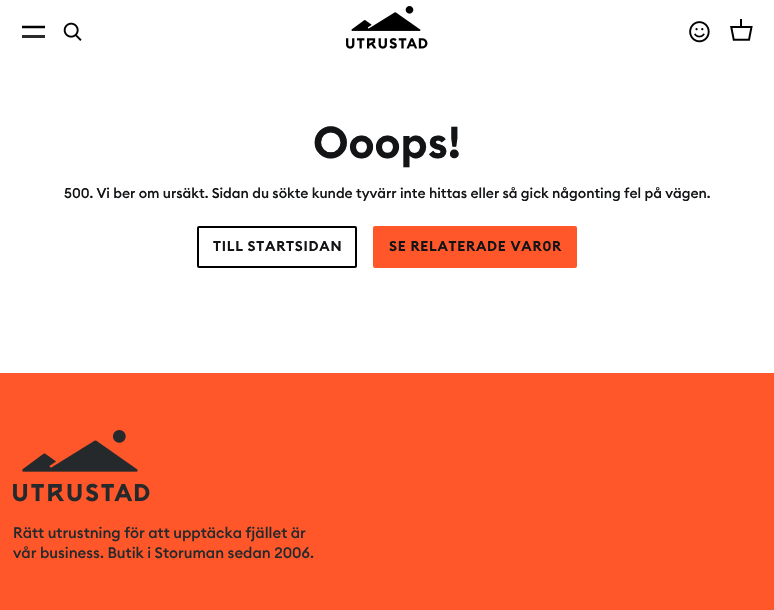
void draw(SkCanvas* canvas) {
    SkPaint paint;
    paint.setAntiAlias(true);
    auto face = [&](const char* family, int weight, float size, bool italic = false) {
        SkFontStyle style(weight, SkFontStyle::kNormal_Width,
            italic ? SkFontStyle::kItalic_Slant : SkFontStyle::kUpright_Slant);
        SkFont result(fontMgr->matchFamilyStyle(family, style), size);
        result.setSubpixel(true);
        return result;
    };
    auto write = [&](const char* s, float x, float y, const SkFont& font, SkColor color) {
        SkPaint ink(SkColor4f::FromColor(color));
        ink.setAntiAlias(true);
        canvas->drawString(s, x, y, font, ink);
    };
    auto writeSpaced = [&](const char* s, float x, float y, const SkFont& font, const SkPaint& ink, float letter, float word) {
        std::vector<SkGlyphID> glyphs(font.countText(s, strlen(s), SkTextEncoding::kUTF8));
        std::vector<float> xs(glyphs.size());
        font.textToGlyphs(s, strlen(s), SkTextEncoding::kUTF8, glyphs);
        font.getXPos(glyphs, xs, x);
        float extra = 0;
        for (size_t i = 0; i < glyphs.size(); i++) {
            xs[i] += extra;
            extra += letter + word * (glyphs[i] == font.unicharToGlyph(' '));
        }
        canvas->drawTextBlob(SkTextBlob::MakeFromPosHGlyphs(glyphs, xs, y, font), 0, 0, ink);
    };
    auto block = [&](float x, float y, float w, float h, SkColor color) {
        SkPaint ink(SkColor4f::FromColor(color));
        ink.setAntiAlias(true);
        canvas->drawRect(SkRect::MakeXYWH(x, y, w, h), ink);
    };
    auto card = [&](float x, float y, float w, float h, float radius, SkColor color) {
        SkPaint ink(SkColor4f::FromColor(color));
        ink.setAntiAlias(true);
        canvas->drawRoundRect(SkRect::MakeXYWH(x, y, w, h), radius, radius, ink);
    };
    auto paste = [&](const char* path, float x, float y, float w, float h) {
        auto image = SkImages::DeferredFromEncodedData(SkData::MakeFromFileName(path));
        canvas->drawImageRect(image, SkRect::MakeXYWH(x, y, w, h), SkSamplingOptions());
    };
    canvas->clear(SK_ColorWHITE);
    paint.setStyle(SkPaint::kStroke_Style);
    paint.setStrokeWidth(2.5f);
    paint.setColor(SK_ColorBLACK);
    canvas->drawPath(SkPathBuilder().moveTo(22, 27).lineTo(45, 27).detach(), paint);
    block(22, 35, 23, 3, SkColorSetRGB(43, 43, 43));
    paste("pic1.png", 63, 22, 19, 19);
    paste("pic2.png", 346, 6, 82, 43);
    paste("pic3.png", 689, 21, 21, 22);
    paste("pic4.png", 730, 19, 23, 22);
    auto kFont1 = face("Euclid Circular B", 600, 44);
    write("Ooops!", 313, 158, kFont1, SkColorSetRGB(19, 20, 22));
    auto kFont2 = face("Euclid Circular B", 500, 14);
    write("500. Vi ber om ursäkt. Sidan du sökte kunde tyvärr inte hittas eller så gick någonting fel på vägen.", 64, 198, kFont2, SkColorSetRGB(19, 20, 22));
    paint.setStrokeWidth(2);
    canvas->drawRoundRect(SkRect::MakeXYWH(198, 227, 158, 40), 1, 1, paint);
    auto kFont3 = face("Euclid Circular B", 600, 14);
    paint.setStyle(SkPaint::kFill_Style);
    paint.setColor(SkColorSetRGB(19, 20, 22));
    writeSpaced("TILL STARTSIDAN", 213, 251, kFont3, paint, 0.75f, 0);
    card(373, 226, 204, 42, 2, SkColorSetRGB(255, 87, 41));
    writeSpaced("SE RELATERADE VAR0R", 389, 251, kFont3, paint, 0.75f, 0);
    block(0, 373, 774, 237, SkColorSetRGB(255, 87, 41));
    paste("pic5.png", 13, 430, 137, 72);
    auto kFont4 = face("Euclid Circular B", 500, 15);
    write("Rätt utrustning för att upptäcka fjället är", 13, 538, kFont4, SkColorSetRGB(38, 41, 44));
    write("vår business. Butik i Storuman sedan 2006.", 13, 558, kFont4, SkColorSetRGB(38, 41, 44));
}
